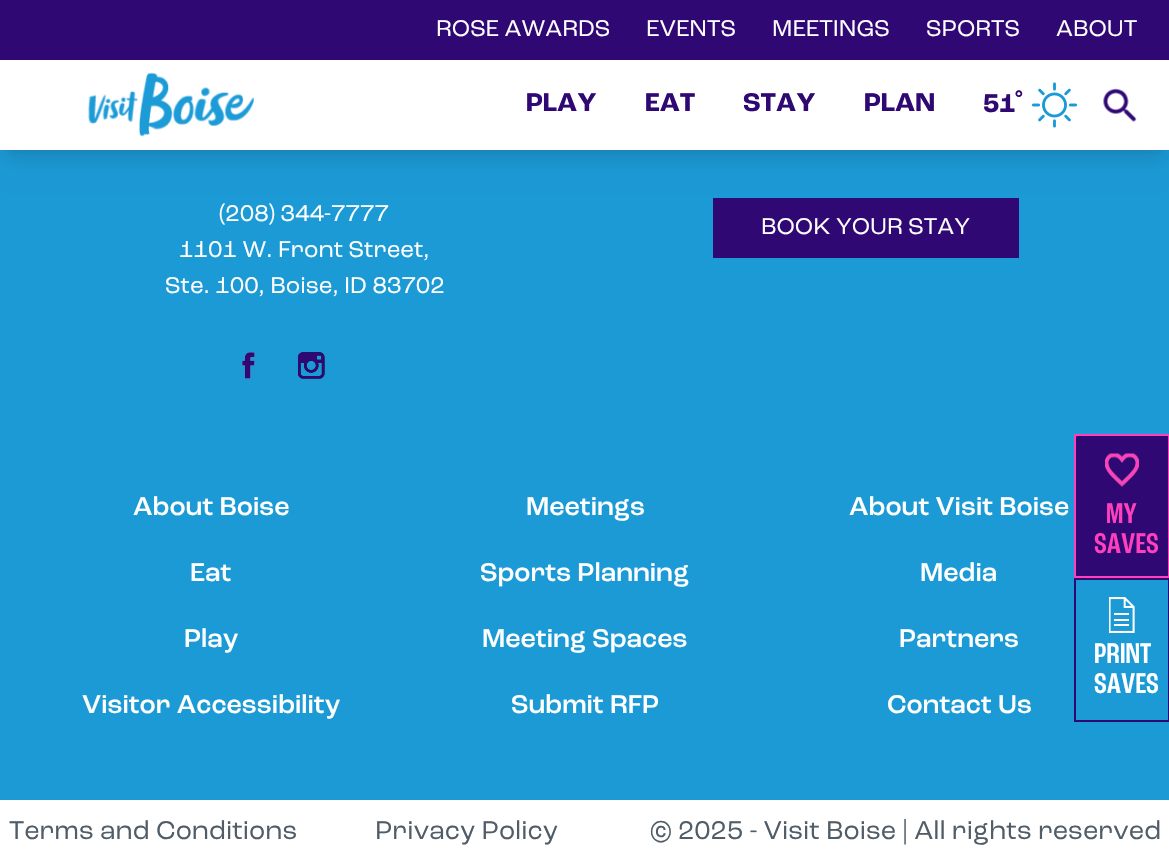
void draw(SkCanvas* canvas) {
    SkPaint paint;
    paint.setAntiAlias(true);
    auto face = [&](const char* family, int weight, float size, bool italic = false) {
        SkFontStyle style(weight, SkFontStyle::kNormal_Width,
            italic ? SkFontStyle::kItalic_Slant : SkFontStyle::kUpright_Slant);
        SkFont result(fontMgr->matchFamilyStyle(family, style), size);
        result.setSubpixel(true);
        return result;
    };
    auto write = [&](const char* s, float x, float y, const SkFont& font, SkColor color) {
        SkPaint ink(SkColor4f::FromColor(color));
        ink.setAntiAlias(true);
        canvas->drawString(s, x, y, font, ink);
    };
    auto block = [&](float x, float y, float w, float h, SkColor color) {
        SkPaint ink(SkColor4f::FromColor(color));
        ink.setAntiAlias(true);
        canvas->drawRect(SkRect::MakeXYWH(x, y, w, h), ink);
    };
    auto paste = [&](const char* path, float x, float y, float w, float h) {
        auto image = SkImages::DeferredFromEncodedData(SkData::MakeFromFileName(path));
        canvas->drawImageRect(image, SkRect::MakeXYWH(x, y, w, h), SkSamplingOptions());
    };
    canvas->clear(SK_ColorWHITE);
    block(0, 150, 1169, 650, SkColorSetRGB(28, 154, 214));
    paint.setColor(SkColorSetARGB(26, 0, 0, 0));
    paint.setMaskFilter(SkMaskFilter::MakeBlur(kNormal_SkBlurStyle, 4.5f));
    canvas->drawRect(SkRect::MakeXYWH(6, 12, 1158, 138), paint);
    paint.setMaskFilter(nullptr);
    paint.setMaskFilter(SkMaskFilter::MakeBlur(kNormal_SkBlurStyle, 11));
    canvas->drawRect(SkRect::MakeXYWH(5, 20, 1161, 141), paint);
    paint.setMaskFilter(nullptr);
    block(0, 0, 1169, 60, SkColorSetRGB(47, 8, 115));
    auto kFont1 = face("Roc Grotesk", 400, 24);
    write("ROSE AWARDS", 436, 36, kFont1, SK_ColorWHITE);
    write("EVENTS", 646, 36, kFont1, SK_ColorWHITE);
    write("MEETINGS", 772, 36, kFont1, SK_ColorWHITE);
    write("SPORTS", 926, 36, kFont1, SK_ColorWHITE);
    write("ABOUT", 1056, 36, kFont1, SK_ColorWHITE);
    block(0, 60, 1169, 90, SK_ColorWHITE);
    paste("pic1.png", 87, 72, 168, 65);
    auto kFont2 = face("Roc Grotesk", 700, 27);
    write("PLAY", 526, 111, kFont2, SkColorSetRGB(47, 8, 115));
    write("EAT", 645, 111, kFont2, SkColorSetRGB(47, 8, 115));
    write("STAY", 743, 111, kFont2, SkColorSetRGB(47, 8, 115));
    write("PLAN", 864, 111, kFont2, SkColorSetRGB(47, 8, 115));
    write("51", 983, 112, kFont2, SkColorSetRGB(47, 8, 115));
    auto kFont3 = face("Liberation Sans", 700, 27);
    write("˚", 1015, 112, kFont3, SkColorSetRGB(47, 8, 115));
    paste("pic2.png", 1032, 82, 45, 46);
    paste("pic3.png", 1103, 88, 34, 34);
    write("(208) 344-7777", 219, 221, kFont1, SK_ColorWHITE);
    write("1101 W. Front Street,", 179, 257, kFont1, SK_ColorWHITE);
    write("Ste. 100, Boise, ID 83702", 165, 293, kFont1, SK_ColorWHITE);
    paste("pic4.png", 242, 352, 13, 27);
    paste("pic5.png", 298, 352, 27, 27);
    block(713, 198, 306, 60, SkColorSetRGB(47, 8, 115));
    write("BOOK YOUR STAY", 761, 234, kFont1, SK_ColorWHITE);
    auto kFont4 = face("Roc Grotesk", 500, 27);
    write("About Boise", 133, 515, kFont4, SK_ColorWHITE);
    write("Eat", 190, 581, kFont4, SK_ColorWHITE);
    write("Play", 184, 647, kFont4, SK_ColorWHITE);
    write("Visitor Accessibility", 82, 713, kFont4, SK_ColorWHITE);
    write("Meetings", 526, 515, kFont4, SK_ColorWHITE);
    write("Sports Planning", 480, 581, kFont4, SK_ColorWHITE);
    write("Meeting Spaces", 482, 647, kFont4, SK_ColorWHITE);
    write("Submit RFP", 511, 713, kFont4, SK_ColorWHITE);
    write("About Visit Boise", 849, 515, kFont4, SK_ColorWHITE);
    write("Media", 920, 581, kFont4, SK_ColorWHITE);
    write("Partners", 899, 647, kFont4, SK_ColorWHITE);
    write("Contact Us", 887, 713, kFont4, SK_ColorWHITE);
    auto kFont5 = face("Roc Grotesk", 400, 27);
    write("Terms and Conditions", 9, 839, kFont5, SkColorSetRGB(80, 93, 104));
    write("Privacy Policy", 375, 839, kFont5, SkColorSetRGB(80, 93, 104));
    write("© 2025 - Visit Boise | All rights reserved", 650, 839, kFont5, SkColorSetRGB(80, 93, 104));
    paint.setColor(SkColorSetRGB(47, 8, 115));
    canvas->drawRect(SkRect::MakeXYWH(1075, 435, 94, 142), paint);
    paint.setStyle(SkPaint::kStroke_Style);
    paint.setStrokeWidth(2);
    paint.setColor(SkColorSetRGB(255, 64, 188));
    canvas->drawRect(SkRect::MakeXYWH(1075, 435, 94, 142), paint);
    paste("pic6.png", 1105, 453, 34, 34);
    auto kFont6 = face("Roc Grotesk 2", 500, 30);
    write("MY", 1106, 523, kFont6, SkColorSetRGB(255, 64, 188));
    write("SAVES", 1094, 553, kFont6, SkColorSetRGB(255, 64, 188));
    paint.setColor(SkColorSetRGB(47, 8, 115));
    canvas->drawRect(SkRect::MakeXYWH(1075, 579, 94, 142), paint);
    paste("pic7.png", 1109, 597, 26, 36);
    write("PRINT", 1094, 663, kFont6, SK_ColorWHITE);
    write("SAVES", 1094, 693, kFont6, SK_ColorWHITE);
}
